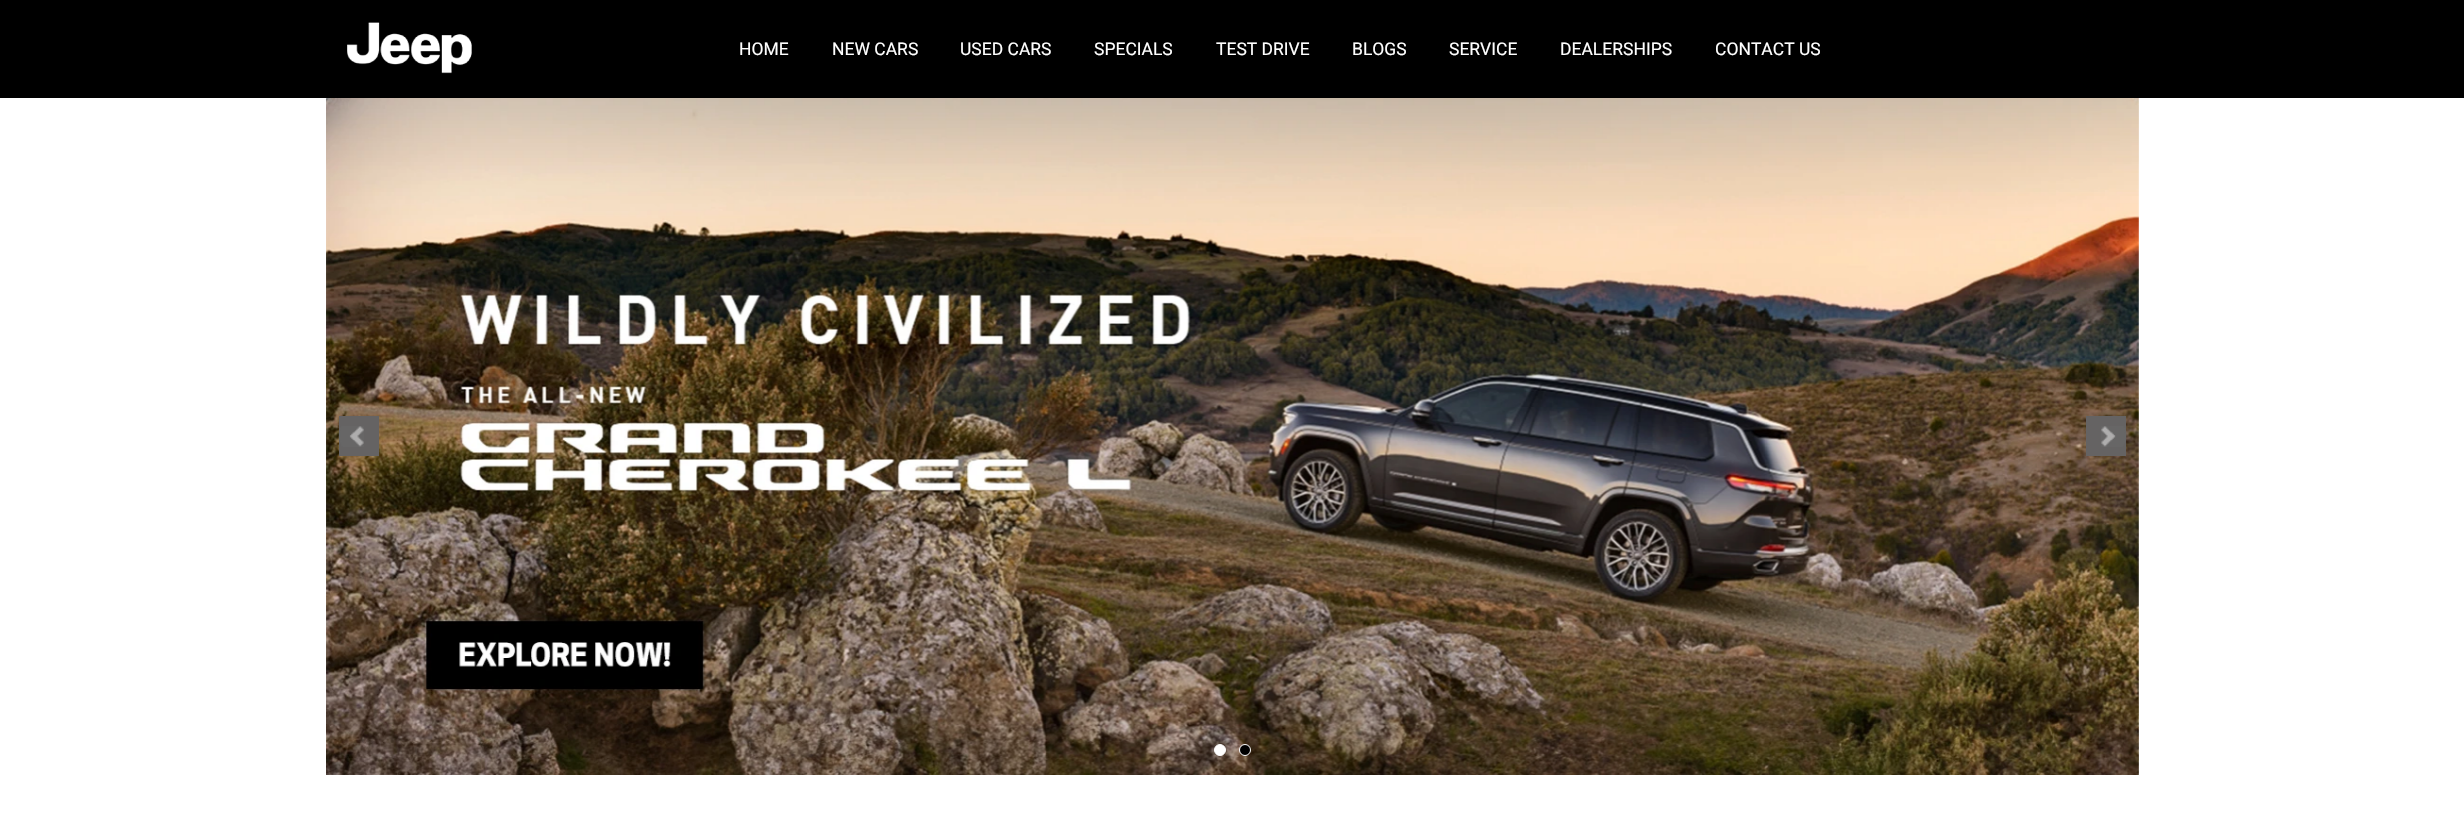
void draw(SkCanvas* canvas) {
    SkPaint paint;
    paint.setAntiAlias(true);
    auto face = [&](const char* family, int weight, float size, bool italic = false) {
        SkFontStyle style(weight, SkFontStyle::kNormal_Width,
            italic ? SkFontStyle::kItalic_Slant : SkFontStyle::kUpright_Slant);
        SkFont result(fontMgr->matchFamilyStyle(family, style), size);
        result.setSubpixel(true);
        return result;
    };
    auto write = [&](const char* s, float x, float y, const SkFont& font, SkColor color) {
        SkPaint ink(SkColor4f::FromColor(color));
        ink.setAntiAlias(true);
        canvas->drawString(s, x, y, font, ink);
    };
    auto block = [&](float x, float y, float w, float h, SkColor color) {
        SkPaint ink(SkColor4f::FromColor(color));
        ink.setAntiAlias(true);
        canvas->drawRect(SkRect::MakeXYWH(x, y, w, h), ink);
    };
    auto paste = [&](const char* path, float x, float y, float w, float h) {
        auto image = SkImages::DeferredFromEncodedData(SkData::MakeFromFileName(path));
        canvas->drawImageRect(image, SkRect::MakeXYWH(x, y, w, h), SkSamplingOptions());
    };
    canvas->clear(SK_ColorWHITE);
    block(0, 0, 2464, 98, SK_ColorBLACK);
    paste("pic1.png", 347, 22, 125, 52);
    auto kFont1 = face("Roboto", 400, 17.5f);
    write("HOME", 739, 55, kFont1, SK_ColorWHITE);
    write("NEW CARS", 832, 55, kFont1, SK_ColorWHITE);
    write("USED CARS", 960, 55, kFont1, SK_ColorWHITE);
    write("SPECIALS", 1094, 55, kFont1, SK_ColorWHITE);
    write("TEST DRIVE", 1216, 55, kFont1, SK_ColorWHITE);
    write("BLOGS", 1352, 55, kFont1, SK_ColorWHITE);
    write("SERVICE", 1449, 55, kFont1, SK_ColorWHITE);
    write("DEALERSHIPS", 1560, 55, kFont1, SK_ColorWHITE);
    write("CONTACT US", 1715, 55, kFont1, SK_ColorWHITE);
    paste("pic2.png", 326, 98, 1813, 677);
    block(339, 416, 40, 40, SkColorSetRGB(101, 99, 99));
    paste("pic3.png", 338, 426, 26, 21);
    block(2086, 416, 40, 40, SkColorSetRGB(101, 99, 99));
    paste("pic4.png", 2101, 426, 26, 21);
    paint.setColor(SK_ColorWHITE);
    canvas->drawCircle(1220, 750, 5.5f, paint);
    paint.setStyle(SkPaint::kStroke_Style);
    paint.setStrokeWidth(1);
    canvas->drawCircle(1220, 750, 5.5f, paint);
    paint.setStyle(SkPaint::kFill_Style);
    paint.setColor(SK_ColorBLACK);
    canvas->drawCircle(1245, 750, 5.5f, paint);
    paint.setStyle(SkPaint::kStroke_Style);
    paint.setColor(SK_ColorWHITE);
    canvas->drawCircle(1245, 750, 5.5f, paint);
}
